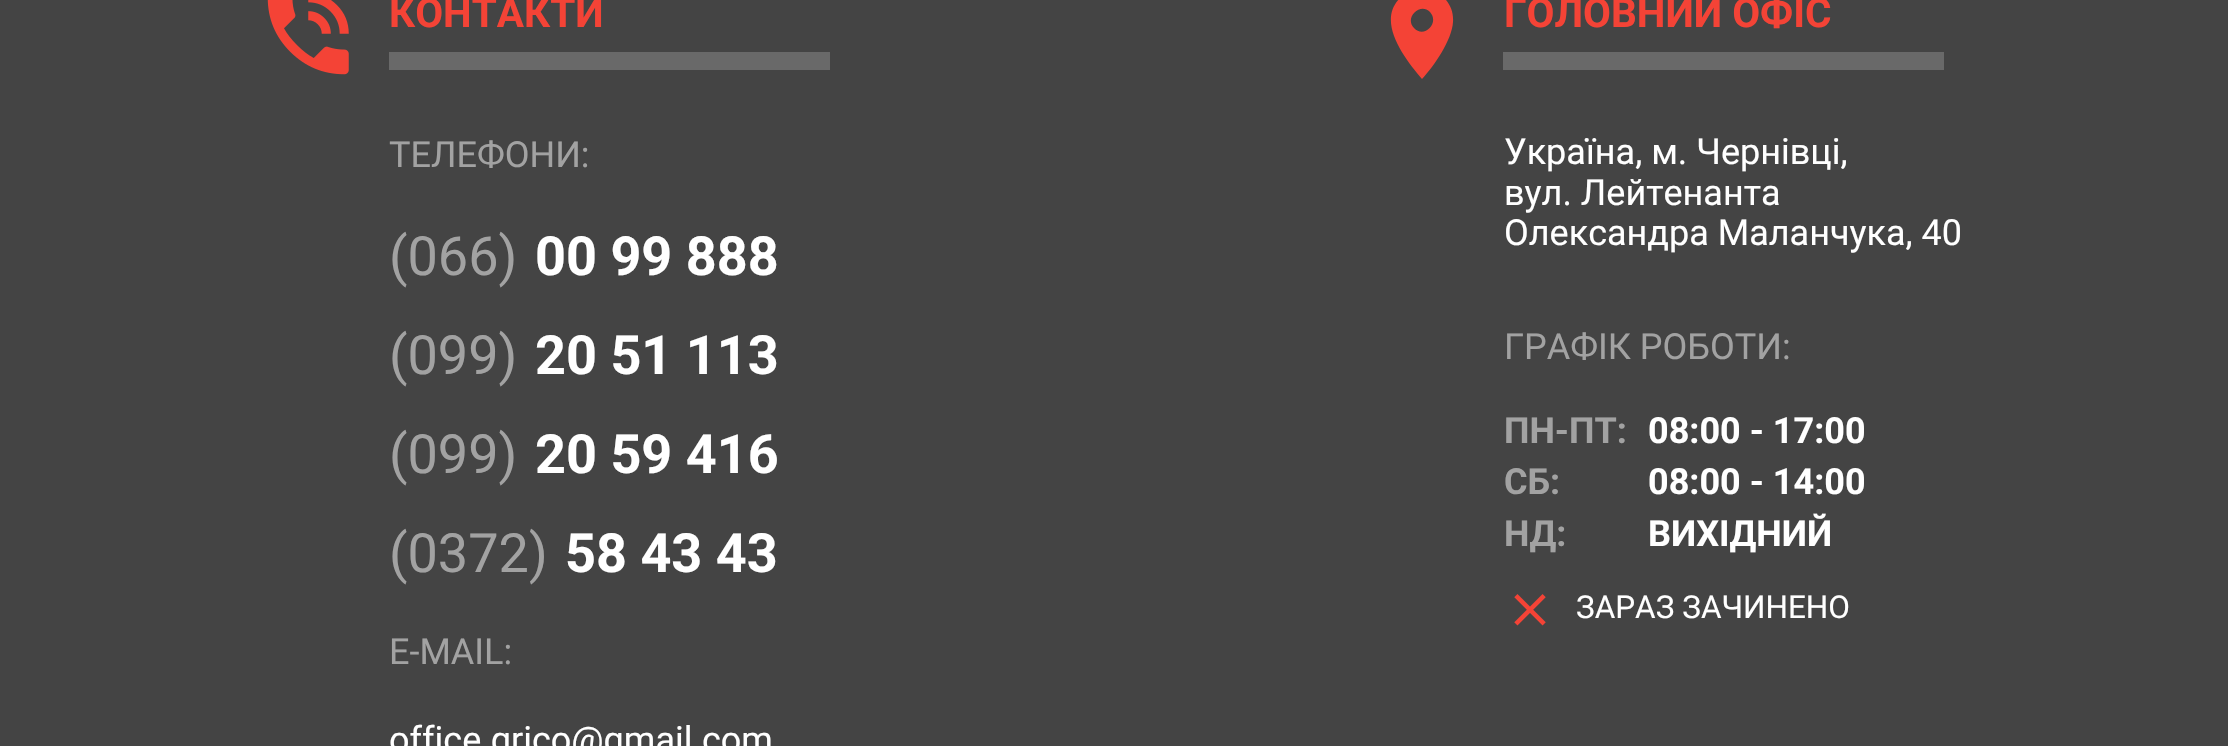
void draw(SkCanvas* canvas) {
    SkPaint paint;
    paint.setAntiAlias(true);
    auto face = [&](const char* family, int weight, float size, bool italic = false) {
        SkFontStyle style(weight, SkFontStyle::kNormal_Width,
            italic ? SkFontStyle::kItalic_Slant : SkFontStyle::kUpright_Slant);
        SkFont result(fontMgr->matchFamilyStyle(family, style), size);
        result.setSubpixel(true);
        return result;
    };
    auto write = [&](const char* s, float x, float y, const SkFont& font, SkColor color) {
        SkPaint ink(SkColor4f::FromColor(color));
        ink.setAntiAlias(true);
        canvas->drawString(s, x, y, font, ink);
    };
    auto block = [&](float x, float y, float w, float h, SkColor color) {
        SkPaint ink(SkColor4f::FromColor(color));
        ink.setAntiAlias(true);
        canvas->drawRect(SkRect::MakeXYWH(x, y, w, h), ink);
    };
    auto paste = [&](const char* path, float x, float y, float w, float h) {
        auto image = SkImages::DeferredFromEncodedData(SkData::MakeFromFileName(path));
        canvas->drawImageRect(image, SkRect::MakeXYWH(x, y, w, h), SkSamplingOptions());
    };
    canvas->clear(SkColorSetRGB(68, 68, 68));
    paste("pic1.png", 267, 0, 82, 75);
    block(389, 52, 441, 18, SkColorSetRGB(105, 105, 105));
    auto kFont1 = face("Roboto", 700, 40.5f);
    write("КОНТАКТИ", 389, 27, kFont1, SkColorSetRGB(244, 67, 54));
    auto kFont2 = face("Roboto", 400, 36);
    write("ТЕЛЕФОНИ:", 389, 167, kFont2, SkColorSetRGB(162, 162, 162));
    auto kFont3 = face("Roboto", 400, 54);
    write("(066)", 389, 275, kFont3, SkColorSetRGB(162, 162, 162));
    auto kFont4 = face("Roboto", 700, 54);
    write("00 99 888", 535, 275, kFont4, SK_ColorWHITE);
    write("(099)", 389, 374, kFont3, SkColorSetRGB(162, 162, 162));
    write("20 51 113", 535, 374, kFont4, SK_ColorWHITE);
    write("(099)", 389, 473, kFont3, SkColorSetRGB(162, 162, 162));
    write("20 59 416", 535, 473, kFont4, SK_ColorWHITE);
    write("(0372)", 389, 572, kFont3, SkColorSetRGB(162, 162, 162));
    write("58 43 43", 565, 572, kFont4, SK_ColorWHITE);
    write("E-MAIL:", 389, 664, kFont2, SkColorSetRGB(162, 162, 162));
    write("office.grico@gmail.com", 389, 752, kFont2, SK_ColorWHITE);
    paint.setColor(SkColorSetRGB(244, 67, 54));
    canvas->drawPath(SkPathBuilder().moveTo(1414, 28).cubicTo(1424, 39, 1440, 23, 1430, 12).cubicTo(1420, 2, 1404, 18, 1414, 28).close().moveTo(1400, -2).cubicTo(1420, -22, 1455, -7, 1453, 22).cubicTo(1452, 40, 1434, 66, 1422, 79).cubicTo(1405, 59, 1376, 22, 1400, -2).close().detach(), paint);
    block(1503, 52, 441, 18, SkColorSetRGB(105, 105, 105));
    write("ГОЛОВНИЙ ОФІС", 1504, 27, kFont1, SkColorSetRGB(244, 67, 54));
    write("Україна, м. Чернівці,", 1504, 164, kFont2, SK_ColorWHITE);
    write("вул. Лейтенанта", 1504, 205, kFont2, SK_ColorWHITE);
    write("Олександра Маланчука, 40", 1504, 245, kFont2, SK_ColorWHITE);
    write("ГРАФІК РОБОТИ:", 1504, 359, kFont2, SkColorSetRGB(162, 162, 162));
    auto kFont5 = face("Roboto", 700, 36);
    write("ПН-ПТ:", 1504, 443, kFont5, SkColorSetRGB(162, 162, 162));
    write("08:00 - 17:00", 1648, 443, kFont5, SK_ColorWHITE);
    write("СБ:", 1504, 494, kFont5, SkColorSetRGB(162, 162, 162));
    write("08:00 - 14:00", 1648, 494, kFont5, SK_ColorWHITE);
    write("НД:", 1504, 546, kFont5, SkColorSetRGB(162, 162, 162));
    write("ВИХІДНИЙ", 1648, 546, kFont5, SK_ColorWHITE);
    paste("pic2.png", 1514, 594, 32, 32);
    auto kFont6 = face("Roboto", 400, 31.5f);
    write("ЗАРАЗ ЗАЧИНЕНО", 1576, 618, kFont6, SK_ColorWHITE);
}
